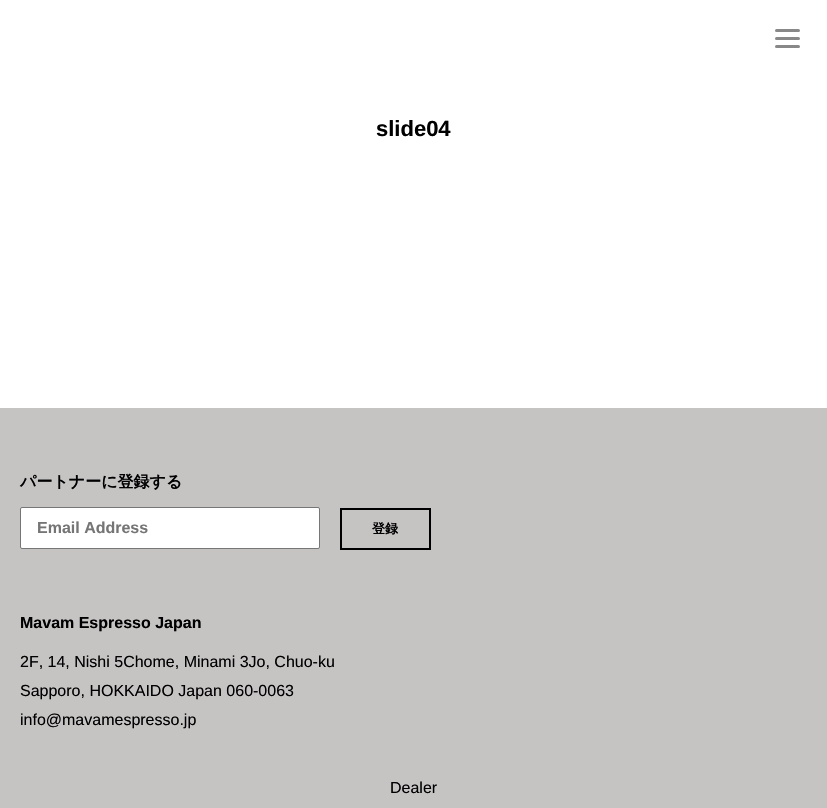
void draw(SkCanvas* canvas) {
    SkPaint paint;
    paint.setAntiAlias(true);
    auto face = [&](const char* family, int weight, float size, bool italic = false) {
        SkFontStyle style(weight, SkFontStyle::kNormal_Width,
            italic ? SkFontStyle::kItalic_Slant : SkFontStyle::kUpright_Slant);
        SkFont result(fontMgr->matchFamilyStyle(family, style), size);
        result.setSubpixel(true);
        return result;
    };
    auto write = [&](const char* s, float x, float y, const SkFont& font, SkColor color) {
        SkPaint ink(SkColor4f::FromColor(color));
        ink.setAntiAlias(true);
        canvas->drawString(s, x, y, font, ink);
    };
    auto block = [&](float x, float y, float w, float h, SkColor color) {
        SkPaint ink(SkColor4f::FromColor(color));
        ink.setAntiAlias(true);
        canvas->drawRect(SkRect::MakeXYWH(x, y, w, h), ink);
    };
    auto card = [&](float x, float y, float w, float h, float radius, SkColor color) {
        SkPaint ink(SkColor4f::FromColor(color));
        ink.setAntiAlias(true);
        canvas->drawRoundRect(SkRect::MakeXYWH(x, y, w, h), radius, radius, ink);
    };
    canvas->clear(SK_ColorWHITE);
    card(775, 37, 25, 3, 1.5f, SkColorSetRGB(136, 136, 136));
    card(775, 29, 25, 3, 1.5f, SkColorSetRGB(136, 136, 136));
    card(775, 45, 25, 3, 1.5f, SkColorSetRGB(136, 136, 136));
    auto kFont1 = face("Liberation Sans", 700, 22);
    write("slide04", 376, 136, kFont1, SK_ColorBLACK);
    block(0, 408, 827, 400, SkColorSetRGB(198, 195, 195));
    auto kFont2 = face("WenQuanYi Zen Hei", 700, 16);
    write("パートナーに登録する", 20, 487, kFont2, SK_ColorBLACK);
    paint.setColor(SK_ColorWHITE);
    canvas->drawRoundRect(SkRect::MakeXYWH(20.5f, 507.5f, 299, 41), 1.5f, 1.5f, paint);
    paint.setStyle(SkPaint::kStroke_Style);
    paint.setStrokeWidth(1);
    paint.setColor(SkColorSetRGB(118, 118, 118));
    canvas->drawRoundRect(SkRect::MakeXYWH(20.5f, 507.5f, 299, 41), 1.5f, 1.5f, paint);
    auto kFont3 = face("Liberation Sans", 700, 16);
    write("Email Address", 37, 533, kFont3, SkColorSetRGB(117, 117, 117));
    paint.setStrokeWidth(2);
    paint.setColor(SK_ColorBLACK);
    canvas->drawRect(SkRect::MakeXYWH(341, 509, 89, 40), paint);
    auto kFont4 = face("WenQuanYi Zen Hei", 700, 13);
    write("登録", 372, 533, kFont4, SK_ColorBLACK);
    write("Mavam Espresso Japan", 20, 628, kFont3, SK_ColorBLACK);
    auto kFont5 = face("Liberation Sans", 400, 16);
    write("2F, 14, Nishi 5Chome, Minami 3Jo, Chuo-ku", 20, 667, kFont5, SK_ColorBLACK);
    write("Sapporo, HOKKAIDO Japan 060-0063", 20, 696, kFont5, SK_ColorBLACK);
    write("info@mavamespresso.jp", 20, 725, kFont5, SK_ColorBLACK);
    write("Dealer", 390, 793, kFont5, SK_ColorBLACK);
}
